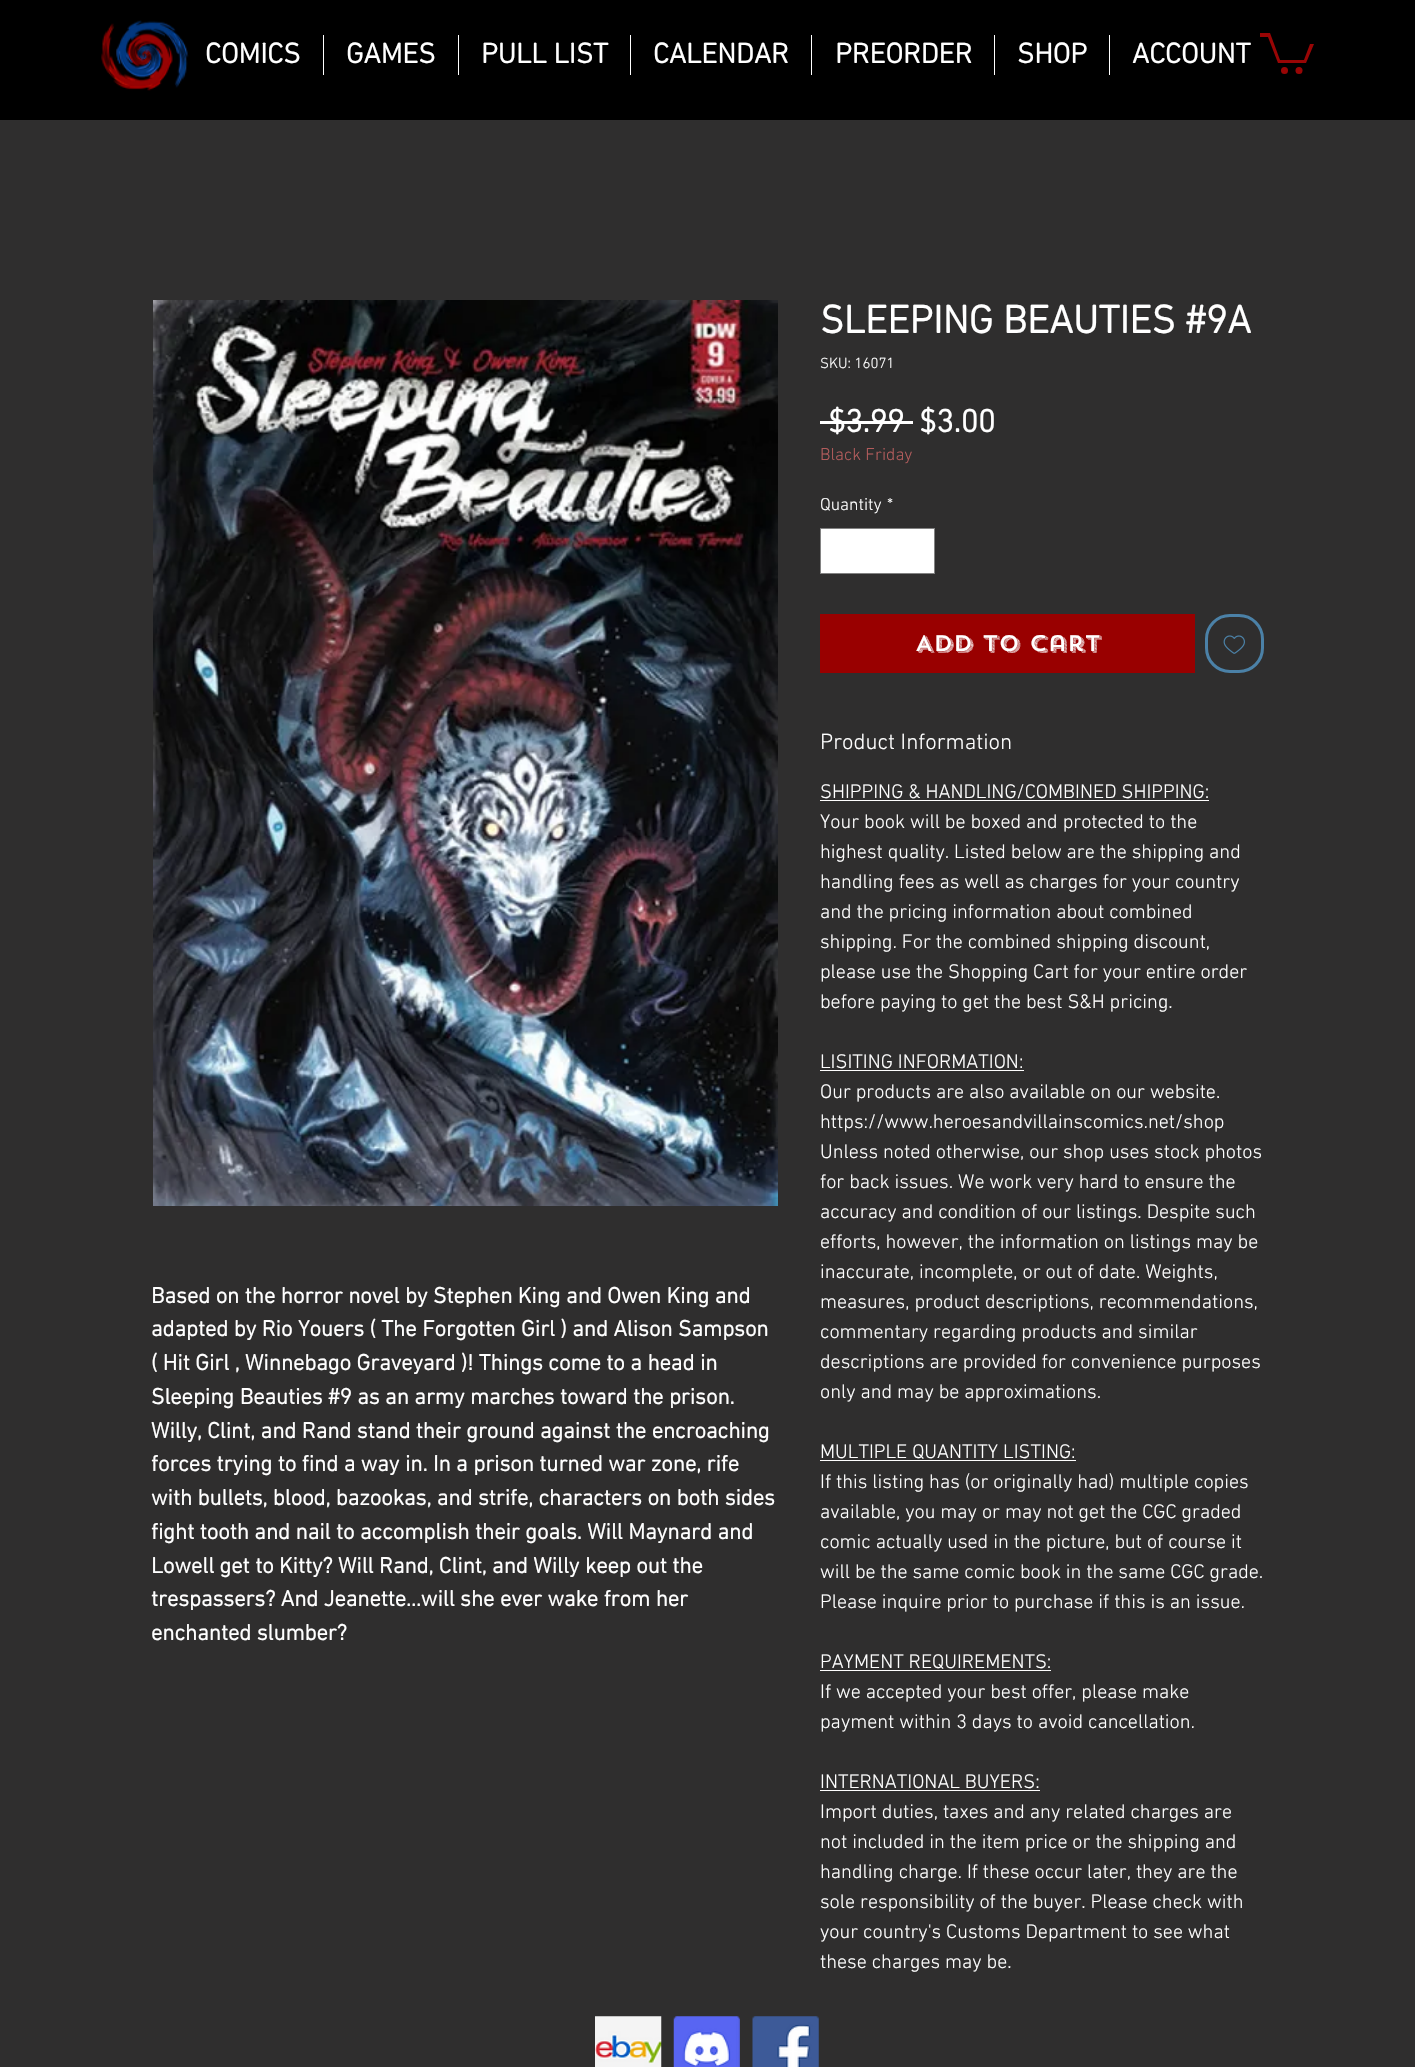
void draw(SkCanvas* canvas) {
    SkPaint paint;
    paint.setAntiAlias(true);
    auto face = [&](const char* family, int weight, float size, bool italic = false) {
        SkFontStyle style(weight, SkFontStyle::kNormal_Width,
            italic ? SkFontStyle::kItalic_Slant : SkFontStyle::kUpright_Slant);
        SkFont result(fontMgr->matchFamilyStyle(family, style), size);
        result.setSubpixel(true);
        return result;
    };
    auto write = [&](const char* s, float x, float y, const SkFont& font, SkColor color) {
        SkPaint ink(SkColor4f::FromColor(color));
        ink.setAntiAlias(true);
        canvas->drawString(s, x, y, font, ink);
    };
    auto block = [&](float x, float y, float w, float h, SkColor color) {
        SkPaint ink(SkColor4f::FromColor(color));
        ink.setAntiAlias(true);
        canvas->drawRect(SkRect::MakeXYWH(x, y, w, h), ink);
    };
    auto paste = [&](const char* path, float x, float y, float w, float h) {
        auto image = SkImages::DeferredFromEncodedData(SkData::MakeFromFileName(path));
        canvas->drawImageRect(image, SkRect::MakeXYWH(x, y, w, h), SkSamplingOptions());
    };
    canvas->clear(SkColorSetRGB(47, 46, 46));
    block(0, 0, 1415, 120, SK_ColorBLACK);
    paste("pic1.png", 101, 20, 88, 71);
    auto kFont1 = face("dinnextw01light", 700, 28.75f);
    write("COMICS", 205, 63, kFont1, SK_ColorWHITE);
    block(323, 35, 1, 40, SK_ColorWHITE);
    write("GAMES", 346, 63, kFont1, SK_ColorWHITE);
    block(458, 35, 1, 40, SK_ColorWHITE);
    write("PULL LIST", 481, 63, kFont1, SK_ColorWHITE);
    block(630, 35, 1, 40, SK_ColorWHITE);
    write("CALENDAR", 653, 63, kFont1, SK_ColorWHITE);
    block(811, 35, 1, 40, SK_ColorWHITE);
    write("PREORDER", 835, 63, kFont1, SK_ColorWHITE);
    block(994, 35, 1, 40, SK_ColorWHITE);
    write("SHOP", 1017, 63, kFont1, SK_ColorWHITE);
    block(1109, 35, 1, 40, SK_ColorWHITE);
    write("ACCOUNT", 1132, 63, kFont1, SK_ColorWHITE);
    paint.setColor(SkColorSetRGB(153, 5, 5));
    canvas->drawPath(SkPathBuilder().moveTo(1314, 44).lineTo(1306, 63).lineTo(1278, 63).lineTo(1268, 37).lineTo(1260, 37).lineTo(1260, 33).lineTo(1270, 33).lineTo(1280, 60).lineTo(1304, 60).lineTo(1310, 44).detach(), paint);
    canvas->drawCircle(1299, 70.5f, 3.5f, paint);
    canvas->drawCircle(1284.5f, 70.5f, 3.5f, paint);
    paste("pic2.png", 153, 300, 625, 906);
    auto kFont2 = face("dinnextw01light", 700, 22.5f);
    write("Based on the horror novel by Stephen King and Owen King and", 151, 1303, kFont2, SK_ColorWHITE);
    write("adapted by Rio Youers ( The Forgotten Girl ) and Alison Sampson", 151, 1336, kFont2, SK_ColorWHITE);
    write("( Hit Girl , Winnebago Graveyard )! Things come to a head in", 151, 1370, kFont2, SK_ColorWHITE);
    write("Sleeping Beauties #9 as an army marches toward the prison.", 151, 1404, kFont2, SK_ColorWHITE);
    write("Willy, Clint, and Rand stand their ground against the encroaching", 151, 1438, kFont2, SK_ColorWHITE);
    write("forces trying to find a way in. In a prison turned war zone, rife", 151, 1471, kFont2, SK_ColorWHITE);
    write("with bullets, blood, bazookas, and strife, characters on both sides", 151, 1505, kFont2, SK_ColorWHITE);
    write("fight tooth and nail to accomplish their goals. Will Maynard and", 151, 1539, kFont2, SK_ColorWHITE);
    write("Lowell get to Kitty? Will Rand, Clint, and Willy keep out the", 151, 1573, kFont2, SK_ColorWHITE);
    write("trespassers? And Jeanette...will she ever wake from her", 151, 1606, kFont2, SK_ColorWHITE);
    write("enchanted slumber?", 151, 1640, kFont2, SK_ColorWHITE);
    auto kFont3 = face("dinnextw01light", 700, 40);
    write("SLEEPING BEAUTIES #9A", 820, 333, kFont3, SK_ColorWHITE);
    auto kFont4 = face("dinnextw01light", 300, 15);
    write("SKU: 16071", 820, 368, kFont4, SK_ColorWHITE);
    auto kFont5 = face("dinnextw01light", 700, 32.5f);
    write("$3.99", 828, 432, kFont5, SK_ColorWHITE);
    block(820, 421, 93, 3, SK_ColorWHITE);
    write("$3.00", 919, 432, kFont5, SK_ColorWHITE);
    auto kFont6 = face("dinnextw01light", 300, 17.5f);
    write("Black Friday", 820, 460, kFont6, SkColorSetRGB(179, 92, 92));
    write("Quantity", 820, 510, kFont6, SK_ColorWHITE);
    write("*", 887, 510, kFont6, SK_ColorWHITE);
    paint.setColor(SK_ColorWHITE);
    canvas->drawRect(SkRect::MakeXYWH(820.5f, 528.5f, 114, 45), paint);
    paint.setStyle(SkPaint::kStroke_Style);
    paint.setStrokeWidth(1);
    paint.setColor(SkColorSetRGB(130, 130, 130));
    canvas->drawRect(SkRect::MakeXYWH(820.5f, 528.5f, 114, 45), paint);
    block(820, 614, 375, 59, SkColorSetRGB(153, 0, 0));
    auto kFont7 = face("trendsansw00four", 500, 22.5f);
    write("Add to Cart", 915, 651, kFont7, SK_ColorWHITE);
    paint.setStrokeWidth(3);
    paint.setColor(SkColorSetRGB(75, 129, 167));
    canvas->drawRoundRect(SkRect::MakeXYWH(1206.5f, 615.5f, 56, 56), 23.5f, 23.5f, paint);
    paste("pic3.png", 1223, 635, 22, 19);
    auto kFont8 = face("dinnextw01light", 300, 22.5f);
    write("Product Information", 820, 749, kFont8, SK_ColorWHITE);
    auto kFont9 = face("dinnextw01light", 300, 20);
    write("SHIPPING & HANDLING/COMBINED SHIPPING:", 820, 798, kFont9, SK_ColorWHITE);
    block(820, 800, 389, 1, SK_ColorWHITE);
    write("Your book will be boxed and protected to the", 820, 828, kFont9, SK_ColorWHITE);
    write("highest quality. Listed below are the shipping and", 820, 858, kFont9, SK_ColorWHITE);
    write("handling fees as well as charges for your country", 820, 888, kFont9, SK_ColorWHITE);
    write("and the pricing information about combined", 820, 918, kFont9, SK_ColorWHITE);
    write("shipping. For the combined shipping discount,", 820, 948, kFont9, SK_ColorWHITE);
    write("please use the Shopping Cart for your entire order", 820, 978, kFont9, SK_ColorWHITE);
    write("before paying to get the best S&H pricing.", 820, 1008, kFont9, SK_ColorWHITE);
    write("LISITING INFORMATION:", 820, 1068, kFont9, SK_ColorWHITE);
    block(820, 1070, 204, 1, SK_ColorWHITE);
    write("Our products are also available on our website.", 820, 1098, kFont9, SK_ColorWHITE);
    write("https://www.heroesandvillainscomics.net/shop", 820, 1128, kFont9, SK_ColorWHITE);
    write("Unless noted otherwise, our shop uses stock photos", 820, 1158, kFont9, SK_ColorWHITE);
    write("for back issues. We work very hard to ensure the", 820, 1188, kFont9, SK_ColorWHITE);
    write("accuracy and condition of our listings. Despite such", 820, 1218, kFont9, SK_ColorWHITE);
    write("efforts, however, the information on listings may be", 820, 1248, kFont9, SK_ColorWHITE);
    write("inaccurate, incomplete, or out of date. Weights,", 820, 1278, kFont9, SK_ColorWHITE);
    write("measures, product descriptions, recommendations,", 820, 1308, kFont9, SK_ColorWHITE);
    write("commentary regarding products and similar", 820, 1338, kFont9, SK_ColorWHITE);
    write("descriptions are provided for convenience purposes", 820, 1368, kFont9, SK_ColorWHITE);
    write("only and may be approximations.", 820, 1398, kFont9, SK_ColorWHITE);
    write("MULTIPLE QUANTITY LISTING:", 820, 1458, kFont9, SK_ColorWHITE);
    block(820, 1460, 256, 1, SK_ColorWHITE);
    write("If this listing has (or originally had) multiple copies", 820, 1488, kFont9, SK_ColorWHITE);
    write("available, you may or may not get the CGC graded", 820, 1518, kFont9, SK_ColorWHITE);
    write("comic actually used in the picture, but of course it", 820, 1548, kFont9, SK_ColorWHITE);
    write("will be the same comic book in the same CGC grade.", 820, 1578, kFont9, SK_ColorWHITE);
    write("Please inquire prior to purchase if this is an issue.", 820, 1608, kFont9, SK_ColorWHITE);
    write("PAYMENT REQUIREMENTS:", 820, 1668, kFont9, SK_ColorWHITE);
    block(820, 1670, 231, 1, SK_ColorWHITE);
    write("If we accepted your best offer, please make", 820, 1698, kFont9, SK_ColorWHITE);
    write("payment within 3 days to avoid cancellation.", 820, 1728, kFont9, SK_ColorWHITE);
    write("INTERNATIONAL BUYERS:", 820, 1788, kFont9, SK_ColorWHITE);
    block(820, 1790, 220, 1, SK_ColorWHITE);
    write("Import duties, taxes and any related charges are", 820, 1818, kFont9, SK_ColorWHITE);
    write("not included in the item price or the shipping and", 820, 1848, kFont9, SK_ColorWHITE);
    write("handling charge. If these occur later, they are the", 820, 1878, kFont9, SK_ColorWHITE);
    write("sole responsibility of the buyer. Please check with", 820, 1908, kFont9, SK_ColorWHITE);
    write("your country's Customs Department to see what", 820, 1938, kFont9, SK_ColorWHITE);
    write("these charges may be.", 820, 1968, kFont9, SK_ColorWHITE);
    paste("pic4.png", 595, 2016, 67, 51);
    paste("pic5.png", 673, 2016, 67, 51);
    paste("pic6.png", 752, 2016, 67, 51);
}
